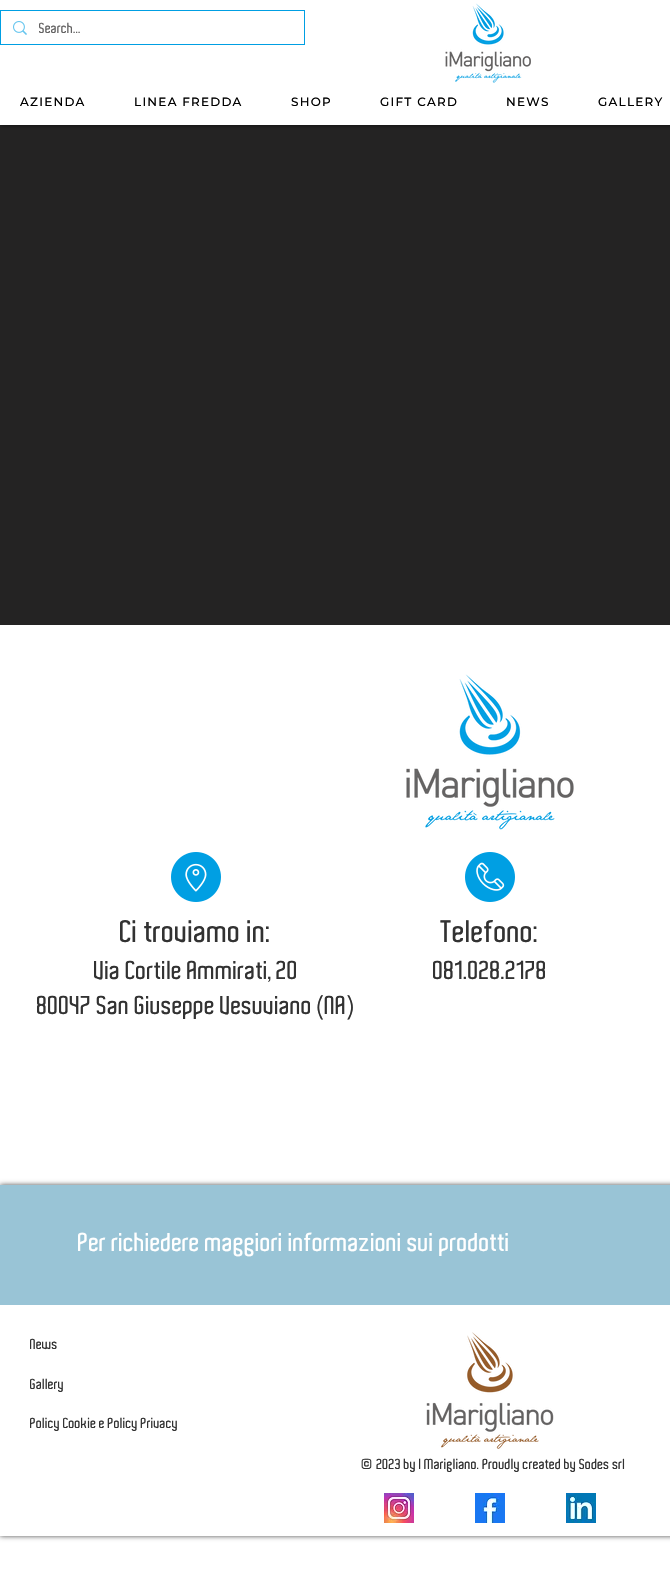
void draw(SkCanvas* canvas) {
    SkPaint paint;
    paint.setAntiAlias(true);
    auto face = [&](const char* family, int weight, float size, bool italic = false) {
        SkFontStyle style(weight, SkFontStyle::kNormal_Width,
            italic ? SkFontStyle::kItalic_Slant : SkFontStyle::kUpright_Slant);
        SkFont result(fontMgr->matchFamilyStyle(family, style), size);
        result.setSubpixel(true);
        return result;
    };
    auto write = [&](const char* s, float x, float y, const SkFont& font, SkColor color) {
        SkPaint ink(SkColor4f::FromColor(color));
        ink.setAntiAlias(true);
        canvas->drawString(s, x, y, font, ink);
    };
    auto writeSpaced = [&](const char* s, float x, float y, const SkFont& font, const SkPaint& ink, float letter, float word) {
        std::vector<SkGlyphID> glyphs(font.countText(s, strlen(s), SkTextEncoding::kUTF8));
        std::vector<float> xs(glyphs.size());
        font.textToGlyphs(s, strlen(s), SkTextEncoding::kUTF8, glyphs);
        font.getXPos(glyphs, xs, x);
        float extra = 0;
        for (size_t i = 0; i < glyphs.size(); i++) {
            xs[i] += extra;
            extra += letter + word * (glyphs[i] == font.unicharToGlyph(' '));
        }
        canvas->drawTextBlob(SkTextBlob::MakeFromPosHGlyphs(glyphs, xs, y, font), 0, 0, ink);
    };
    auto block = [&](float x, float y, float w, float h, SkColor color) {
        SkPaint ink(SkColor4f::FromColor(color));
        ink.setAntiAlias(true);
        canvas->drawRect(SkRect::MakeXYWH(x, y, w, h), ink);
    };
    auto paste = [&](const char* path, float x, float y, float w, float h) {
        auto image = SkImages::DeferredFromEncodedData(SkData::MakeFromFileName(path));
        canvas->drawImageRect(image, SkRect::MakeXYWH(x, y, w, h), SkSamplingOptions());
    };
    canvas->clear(SK_ColorWHITE);
    block(0, 125, 670, 500, SkColorSetRGB(36, 35, 35));
    canvas->save();
    canvas->clipRect(SkRect::MakeXYWH(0, 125, 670, 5));
    paint.setColor(SkColorSetARGB(179, 0, 0, 0));
    paint.setMaskFilter(SkMaskFilter::MakeBlur(kNormal_SkBlurStyle, 2.5f));
    canvas->drawRect(SkRect::MakeXYWH(0, 0, 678, 125), paint);
    paint.setMaskFilter(nullptr);
    canvas->restore();
    paint.setStyle(SkPaint::kStroke_Style);
    paint.setStrokeWidth(1);
    paint.setColor(SkColorSetRGB(0, 159, 227));
    canvas->drawRect(SkRect::MakeXYWH(0.5f, 10.5f, 304, 34), paint);
    paste("pic1.png", 13, 21, 14, 14);
    auto kFont1 = face("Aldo", 600, 14);
    write("Search...", 39, 33, kFont1, SkColorSetRGB(100, 99, 99));
    paste("pic2.png", 445, 3, 86, 80);
    auto kFont2 = face("Montserrat", 500, 12);
    paint.setStyle(SkPaint::kFill_Style);
    paint.setColor(SK_ColorBLACK);
    writeSpaced("AZIENDA", 20, 106, kFont2, paint, 1.25f, 0);
    writeSpaced("LINEA FREDDA", 134, 106, kFont2, paint, 1.25f, 0);
    writeSpaced("SHOP", 291, 106, kFont2, paint, 1.25f, 0);
    writeSpaced("GIFT CARD", 380, 106, kFont2, paint, 1.25f, 0);
    writeSpaced("NEWS", 506, 106, kFont2, paint, 1.25f, 0);
    writeSpaced("GALLERY", 598, 106, kFont2, paint, 1.25f, 0);
    paste("pic3.png", 406, 674, 168, 156);
    paste("pic4.png", 171, 852, 50, 50);
    auto kFont3 = face("Aldo", 600, 30);
    write("Ci troviamo in:", 120, 942, kFont3, SkColorSetRGB(50, 50, 50));
    auto kFont4 = face("Aldo", 600, 25);
    write("Via Cortile Ammirati, 20", 94, 979, kFont4, SkColorSetRGB(50, 50, 50));
    write("80047 San Giuseppe Vesuviano (NA)", 37, 1014, kFont4, SkColorSetRGB(50, 50, 50));
    paste("pic5.png", 465, 852, 50, 50);
    write("Telefono:", 441, 942, kFont3, SkColorSetRGB(50, 50, 50));
    write("081.028.2178", 433, 979, kFont4, SkColorSetRGB(50, 50, 50));
    canvas->save();
    canvas->clipPath(SkPathBuilder(SkPathFillType::kEvenOdd).moveTo(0, 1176).lineTo(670, 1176).lineTo(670, 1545).lineTo(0, 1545).close().moveTo(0, 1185).lineTo(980, 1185).lineTo(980, 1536).lineTo(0, 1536).close().detach(), true);
    paint.setColor(SkColorSetARGB(179, 0, 0, 0));
    paint.setMaskFilter(SkMaskFilter::MakeBlur(kNormal_SkBlurStyle, 2.5f));
    canvas->drawRect(SkRect::MakeXYWH(0, 1185, 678, 351), paint);
    paint.setMaskFilter(nullptr);
    canvas->restore();
    block(0, 1185, 670, 120, SkColorSetRGB(153, 196, 214));
    write("Per richiedere maggiori informazioni sui prodotti", 78, 1251, kFont4, SK_ColorWHITE);
    write("News", 30, 1349, kFont1, SkColorSetRGB(50, 50, 50));
    paste("pic6.png", 426, 1332, 128, 117);
    write("Gallery", 30, 1389, kFont1, SkColorSetRGB(50, 50, 50));
    write("Policy Cookie e Policy Privacy", 30, 1428, kFont1, SkColorSetRGB(50, 50, 50));
    write("© 2023 by I Marigliano. Proudly created by Sodes srl", 361, 1469, kFont1, SkColorSetRGB(50, 50, 50));
    paste("pic7.png", 384, 1493, 30, 30);
    paste("pic8.png", 475, 1493, 30, 30);
    paste("pic9.png", 566, 1493, 30, 30);
}
